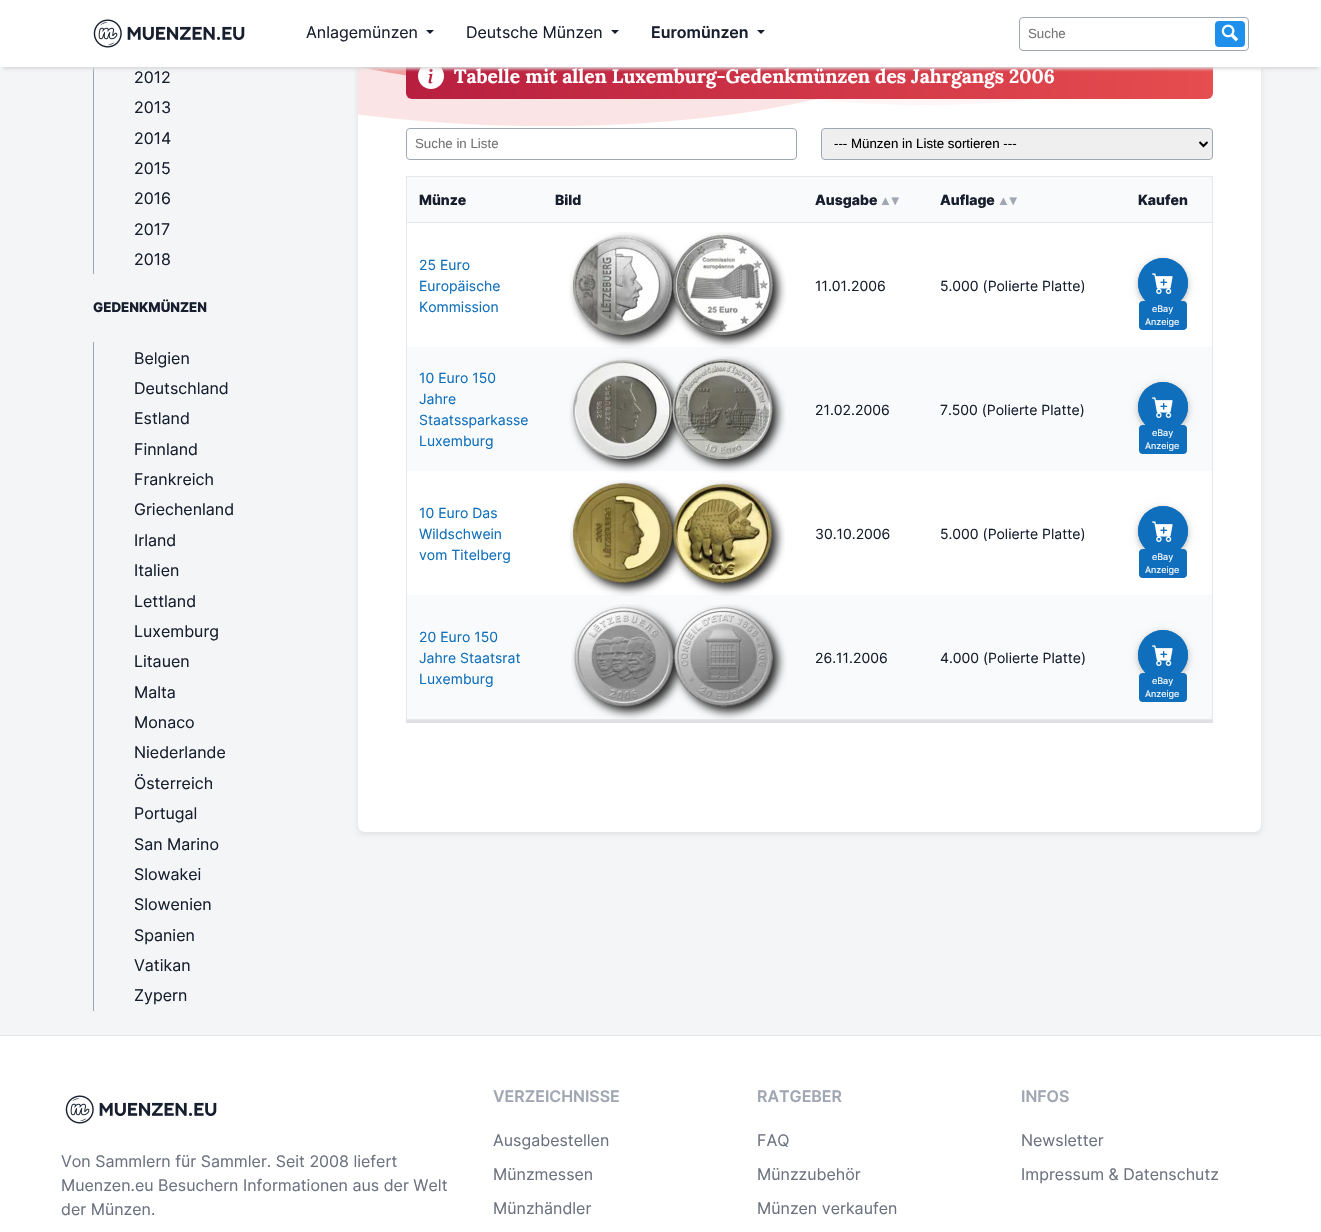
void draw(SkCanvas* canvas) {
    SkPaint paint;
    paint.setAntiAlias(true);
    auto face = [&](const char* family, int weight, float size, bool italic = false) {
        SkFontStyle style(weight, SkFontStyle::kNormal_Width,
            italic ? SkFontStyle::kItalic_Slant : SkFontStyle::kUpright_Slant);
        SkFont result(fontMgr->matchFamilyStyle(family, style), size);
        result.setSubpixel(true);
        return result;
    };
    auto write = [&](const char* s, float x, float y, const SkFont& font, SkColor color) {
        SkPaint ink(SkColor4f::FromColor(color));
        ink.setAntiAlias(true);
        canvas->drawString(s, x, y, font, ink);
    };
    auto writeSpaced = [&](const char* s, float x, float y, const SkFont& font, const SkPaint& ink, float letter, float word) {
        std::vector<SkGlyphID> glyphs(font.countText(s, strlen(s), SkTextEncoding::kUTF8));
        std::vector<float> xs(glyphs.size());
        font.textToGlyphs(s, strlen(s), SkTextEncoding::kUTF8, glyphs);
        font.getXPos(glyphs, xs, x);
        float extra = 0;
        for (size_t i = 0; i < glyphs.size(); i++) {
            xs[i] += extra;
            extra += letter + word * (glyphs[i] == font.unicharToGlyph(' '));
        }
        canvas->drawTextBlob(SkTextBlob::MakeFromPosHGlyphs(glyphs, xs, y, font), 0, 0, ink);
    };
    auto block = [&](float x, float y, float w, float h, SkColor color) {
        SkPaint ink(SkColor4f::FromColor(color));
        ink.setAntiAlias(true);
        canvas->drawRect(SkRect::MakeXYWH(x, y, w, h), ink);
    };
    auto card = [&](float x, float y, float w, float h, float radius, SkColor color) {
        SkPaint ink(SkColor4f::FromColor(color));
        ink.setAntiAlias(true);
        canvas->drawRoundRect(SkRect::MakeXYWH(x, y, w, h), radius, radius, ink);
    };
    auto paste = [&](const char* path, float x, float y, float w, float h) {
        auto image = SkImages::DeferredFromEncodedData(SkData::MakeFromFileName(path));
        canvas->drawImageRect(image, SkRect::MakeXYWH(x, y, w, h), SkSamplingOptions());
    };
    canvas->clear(SkColorSetRGB(244, 245, 247));
    block(93, 62, 1, 212, SkColorSetRGB(160, 166, 178));
    paint.setColor(SkColorSetRGB(226, 228, 230));
    paint.setMaskFilter(SkMaskFilter::MakeBlur(kNormal_SkBlurStyle, 2));
    canvas->drawRoundRect(SkRect::MakeXYWH(357, -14, 905, 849), 8, 8, paint);
    paint.setMaskFilter(nullptr);
    paste("pic4.png", 358, 67, 903, 59);
    {
        const SkColor colors[] = {SkColorSetRGB(184, 30, 63), SkColorSetRGB(230, 77, 79)};
        const float stops[] = {0, 1};
        const SkPoint ends[] = {{406, 76}, {1213, 75}};
        paint.setShader(SkGradientShader::MakeLinear(ends, colors, stops, 2, SkTileMode::kClamp));
        paint.setAlpha(255);
    }
    canvas->drawRoundRect(SkRect::MakeXYWH(406, 52, 807, 47), 6, 6, paint);
    paste("pic5.png", 418, 67, 26, 22);
    paint.setShader(nullptr);
    paint.setColor(SkColorSetRGB(218, 218, 220));
    paint.setMaskFilter(SkMaskFilter::MakeBlur(kNormal_SkBlurStyle, 1.5f));
    canvas->drawRect(SkRect::MakeXYWH(3, 8, 1315, 61), paint);
    paint.setMaskFilter(nullptr);
    block(0, 0, 1321, 67, SK_ColorWHITE);
    paste("pic1.png", 93, 19, 152, 29);
    auto kFont1 = face("Inter", 400, 16);
    write("Anlagemünzen", 306, 38, kFont1, SkColorSetRGB(23, 30, 46));
    paint.setColor(SkColorSetRGB(23, 30, 46));
    canvas->drawPath(SkPathBuilder().moveTo(426, 30).lineTo(434, 30).lineTo(430, 34).close().detach(), paint);
    write("Deutsche Münzen", 466, 38, kFont1, SkColorSetRGB(23, 30, 46));
    canvas->drawPath(SkPathBuilder().moveTo(611, 30).lineTo(619, 30).lineTo(615, 34).close().detach(), paint);
    auto kFont2 = face("Inter", 600, 16);
    write("Euromünzen", 651, 38, kFont2, SkColorSetRGB(23, 30, 46));
    canvas->drawPath(SkPathBuilder().moveTo(757, 30).lineTo(765, 30).lineTo(761, 34).close().detach(), paint);
    paint.setStyle(SkPaint::kStroke_Style);
    paint.setStrokeWidth(1);
    paint.setColor(SkColorSetRGB(160, 166, 178));
    canvas->drawRoundRect(SkRect::MakeXYWH(1019.5f, 17.5f, 229, 33), 3.5f, 3.5f, paint);
    auto kFont3 = face("Liberation Sans", 400, 13.3f);
    write("Suche", 1028, 38, kFont3, SkColorSetRGB(117, 117, 117));
    card(1215, 21, 30, 26, 4, SkColorSetRGB(30, 143, 235));
    paste("pic2.png", 1221, 24, 18, 18);
    write("2012", 134, 83, kFont1, SkColorSetRGB(23, 30, 46));
    write("2013", 134, 113, kFont1, SkColorSetRGB(23, 30, 46));
    write("2014", 134, 144, kFont1, SkColorSetRGB(23, 30, 46));
    write("2015", 134, 174, kFont1, SkColorSetRGB(23, 30, 46));
    write("2016", 134, 204, kFont1, SkColorSetRGB(23, 30, 46));
    write("2017", 134, 235, kFont1, SkColorSetRGB(23, 30, 46));
    write("2018", 134, 265, kFont1, SkColorSetRGB(23, 30, 46));
    auto kFont4 = face("Inter", 800, 13.3f);
    write("GEDENKMÜNZEN", 93, 312, kFont4, SkColorSetRGB(23, 30, 46));
    block(93, 342, 1, 669, SkColorSetRGB(160, 166, 178));
    write("Belgien", 134, 364, kFont1, SkColorSetRGB(23, 30, 46));
    write("Deutschland", 134, 394, kFont1, SkColorSetRGB(23, 30, 46));
    write("Estland", 134, 424, kFont1, SkColorSetRGB(23, 30, 46));
    write("Finnland", 134, 455, kFont1, SkColorSetRGB(23, 30, 46));
    write("Frankreich", 134, 485, kFont1, SkColorSetRGB(23, 30, 46));
    write("Griechenland", 134, 515, kFont1, SkColorSetRGB(23, 30, 46));
    write("Irland", 134, 546, kFont1, SkColorSetRGB(23, 30, 46));
    write("Italien", 134, 576, kFont1, SkColorSetRGB(23, 30, 46));
    write("Lettland", 134, 607, kFont1, SkColorSetRGB(23, 30, 46));
    write("Luxemburg", 134, 637, kFont1, SkColorSetRGB(23, 30, 46));
    write("Litauen", 134, 667, kFont1, SkColorSetRGB(23, 30, 46));
    write("Malta", 134, 698, kFont1, SkColorSetRGB(23, 30, 46));
    write("Monaco", 134, 728, kFont1, SkColorSetRGB(23, 30, 46));
    write("Niederlande", 134, 758, kFont1, SkColorSetRGB(23, 30, 46));
    write("Österreich", 134, 789, kFont1, SkColorSetRGB(23, 30, 46));
    write("Portugal", 134, 819, kFont1, SkColorSetRGB(23, 30, 46));
    write("San Marino", 134, 850, kFont1, SkColorSetRGB(23, 30, 46));
    write("Slowakei", 134, 880, kFont1, SkColorSetRGB(23, 30, 46));
    write("Slowenien", 134, 910, kFont1, SkColorSetRGB(23, 30, 46));
    write("Spanien", 134, 941, kFont1, SkColorSetRGB(23, 30, 46));
    write("Vatikan", 134, 971, kFont1, SkColorSetRGB(23, 30, 46));
    write("Zypern", 134, 1001, kFont1, SkColorSetRGB(23, 30, 46));
    paste("pic3.png", 358, 126, 903, 706);
    auto kFont5 = face("Lora", 700, 19.2f);
    write("Tabelle mit allen Luxemburg-Gedenkmünzen des Jahrgangs 2006", 454, 83, kFont5, SK_ColorWHITE);
    canvas->drawRoundRect(SkRect::MakeXYWH(406.5f, 128.5f, 390, 31), 3.5f, 3.5f, paint);
    write("Suche in Liste", 415, 148, kFont3, SkColorSetRGB(117, 117, 117));
    paint.setStyle(SkPaint::kFill_Style);
    paint.setColor(SkColorSetRGB(239, 239, 239));
    canvas->drawRoundRect(SkRect::MakeXYWH(821.5f, 128.5f, 391, 31), 3.5f, 3.5f, paint);
    paint.setStyle(SkPaint::kStroke_Style);
    paint.setColor(SkColorSetRGB(160, 166, 178));
    canvas->drawRoundRect(SkRect::MakeXYWH(821.5f, 128.5f, 391, 31), 3.5f, 3.5f, paint);
    paint.setStrokeWidth(2);
    paint.setColor(SK_ColorBLACK);
    canvas->drawPath(SkPathBuilder().moveTo(1199.5f, 142).lineTo(1203.5f, 146).lineTo(1207.5f, 142).detach(), paint);
    write("--- Münzen in Liste sortieren ---", 834, 148, kFont3, SK_ColorBLACK);
    block(406, 720, 807, 3, SkColorSetRGB(222, 224, 227));
    block(406, 176, 807, 1, SkColorSetRGB(230, 231, 235));
    block(1212, 176, 1, 544, SkColorSetRGB(230, 231, 235));
    block(406, 719, 807, 1, SkColorSetRGB(230, 231, 235));
    block(406, 176, 1, 544, SkColorSetRGB(230, 231, 235));
    block(407, 177, 805, 45, SkColorSetRGB(249, 250, 251));
    block(406, 222, 807, 1, SkColorSetRGB(230, 231, 235));
    auto kFont6 = face("Inter", 800, 14);
    write("Münze", 419, 205, kFont6, SkColorSetRGB(23, 30, 46));
    write("Bild", 555, 205, kFont6, SkColorSetRGB(23, 30, 46));
    write("Ausgabe", 815, 205, kFont6, SkColorSetRGB(23, 30, 46));
    auto kFont7 = face("Liberation Sans", 700, 13);
    paint.setStyle(SkPaint::kFill_Style);
    paint.setColor(SkColorSetRGB(160, 166, 178));
    writeSpaced("▲▼", 879, 205, kFont7, paint, -3, 0);
    write("Auflage", 940, 205, kFont6, SkColorSetRGB(23, 30, 46));
    writeSpaced("▲▼", 997, 205, kFont7, paint, -3, 0);
    write("Kaufen", 1138, 205, kFont6, SkColorSetRGB(23, 30, 46));
    auto kFont8 = face("Inter", 400, 14);
    write("25 Euro", 419, 270, kFont8, SkColorSetRGB(16, 111, 188));
    write("Europäische", 419, 291, kFont8, SkColorSetRGB(16, 111, 188));
    write("Kommission", 419, 312, kFont8, SkColorSetRGB(16, 111, 188));
    block(407, 347, 805, 124, SkColorSetRGB(249, 250, 251));
    paste("pic6.png", 569, 232, 217, 117);
    write("11.01.2006", 815, 291, kFont8, SkColorSetRGB(23, 30, 46));
    write("5.000 (Polierte Platte)", 940, 291, kFont8, SkColorSetRGB(23, 30, 46));
    paint.setColor(SkColorSetARGB(26, 0, 0, 0));
    paint.setMaskFilter(SkMaskFilter::MakeBlur(kNormal_SkBlurStyle, 5));
    canvas->drawRoundRect(SkRect::MakeXYWH(1138, 260, 50, 50), 25, 25, paint);
    paint.setMaskFilter(nullptr);
    paint.setColor(SkColorSetARGB(51, 0, 0, 0));
    paint.setMaskFilter(SkMaskFilter::MakeBlur(kNormal_SkBlurStyle, 2.5f));
    canvas->drawRoundRect(SkRect::MakeXYWH(1138, 260, 50, 50), 25, 25, paint);
    paint.setMaskFilter(nullptr);
    paint.setColor(SkColorSetRGB(16, 111, 188));
    canvas->drawCircle(1163, 283, 25, paint);
    paste("pic7.png", 1152, 273, 21, 21);
    paint.setStyle(SkPaint::kStroke_Style);
    paint.setStrokeWidth(1);
    canvas->drawCircle(1163, 283, 24.5f, paint);
    card(1139, 301, 48, 29, 4, SkColorSetRGB(16, 111, 188));
    auto kFont9 = face("Inter", 400, 9);
    write("eBay", 1152, 312, kFont9, SK_ColorWHITE);
    write("Anzeige", 1145, 325, kFont9, SK_ColorWHITE);
    write("10 Euro 150", 419, 383, kFont8, SkColorSetRGB(16, 111, 188));
    write("Jahre", 419, 404, kFont8, SkColorSetRGB(16, 111, 188));
    write("Staatssparkasse", 419, 425, kFont8, SkColorSetRGB(16, 111, 188));
    write("Luxemburg", 419, 446, kFont8, SkColorSetRGB(16, 111, 188));
    paste("pic8.png", 569, 356, 217, 117);
    write("21.02.2006", 815, 415, kFont8, SkColorSetRGB(23, 30, 46));
    write("7.500 (Polierte Platte)", 940, 415, kFont8, SkColorSetRGB(23, 30, 46));
    paint.setStyle(SkPaint::kFill_Style);
    paint.setColor(SkColorSetARGB(26, 0, 0, 0));
    paint.setMaskFilter(SkMaskFilter::MakeBlur(kNormal_SkBlurStyle, 5));
    canvas->drawRoundRect(SkRect::MakeXYWH(1138, 384, 50, 50), 25, 25, paint);
    paint.setMaskFilter(nullptr);
    paint.setColor(SkColorSetARGB(51, 0, 0, 0));
    paint.setMaskFilter(SkMaskFilter::MakeBlur(kNormal_SkBlurStyle, 2.5f));
    canvas->drawRoundRect(SkRect::MakeXYWH(1138, 384, 50, 50), 25, 25, paint);
    paint.setMaskFilter(nullptr);
    paint.setColor(SkColorSetRGB(16, 111, 188));
    canvas->drawCircle(1163, 407, 25, paint);
    paste("pic7.png", 1152, 397, 21, 21);
    paint.setStyle(SkPaint::kStroke_Style);
    canvas->drawCircle(1163, 407, 24.5f, paint);
    card(1139, 425, 48, 29, 4, SkColorSetRGB(16, 111, 188));
    write("eBay", 1152, 436, kFont9, SK_ColorWHITE);
    write("Anzeige", 1145, 449, kFont9, SK_ColorWHITE);
    write("10 Euro Das", 419, 518, kFont8, SkColorSetRGB(16, 111, 188));
    write("Wildschwein", 419, 539, kFont8, SkColorSetRGB(16, 111, 188));
    write("vom Titelberg", 419, 560, kFont8, SkColorSetRGB(16, 111, 188));
    block(407, 595, 805, 124, SkColorSetRGB(249, 250, 251));
    paste("pic9.png", 569, 480, 216, 116);
    write("30.10.2006", 815, 539, kFont8, SkColorSetRGB(23, 30, 46));
    write("5.000 (Polierte Platte)", 940, 539, kFont8, SkColorSetRGB(23, 30, 46));
    paint.setStyle(SkPaint::kFill_Style);
    paint.setColor(SkColorSetARGB(26, 0, 0, 0));
    paint.setMaskFilter(SkMaskFilter::MakeBlur(kNormal_SkBlurStyle, 5));
    canvas->drawRoundRect(SkRect::MakeXYWH(1138, 508, 50, 50), 25, 25, paint);
    paint.setMaskFilter(nullptr);
    paint.setColor(SkColorSetARGB(51, 0, 0, 0));
    paint.setMaskFilter(SkMaskFilter::MakeBlur(kNormal_SkBlurStyle, 2.5f));
    canvas->drawRoundRect(SkRect::MakeXYWH(1138, 508, 50, 50), 25, 25, paint);
    paint.setMaskFilter(nullptr);
    paint.setColor(SkColorSetRGB(16, 111, 188));
    canvas->drawCircle(1163, 531, 25, paint);
    paste("pic7.png", 1152, 521, 21, 21);
    paint.setStyle(SkPaint::kStroke_Style);
    canvas->drawCircle(1163, 531, 24.5f, paint);
    card(1139, 549, 48, 29, 4, SkColorSetRGB(16, 111, 188));
    write("eBay", 1152, 560, kFont9, SK_ColorWHITE);
    write("Anzeige", 1145, 573, kFont9, SK_ColorWHITE);
    write("20 Euro 150", 419, 642, kFont8, SkColorSetRGB(16, 111, 188));
    write("Jahre Staatsrat", 419, 663, kFont8, SkColorSetRGB(16, 111, 188));
    write("Luxemburg", 419, 684, kFont8, SkColorSetRGB(16, 111, 188));
    paste("pic10.png", 571, 604, 216, 116);
    write("26.11.2006", 815, 663, kFont8, SkColorSetRGB(23, 30, 46));
    write("4.000 (Polierte Platte)", 940, 663, kFont8, SkColorSetRGB(23, 30, 46));
    paint.setStyle(SkPaint::kFill_Style);
    paint.setColor(SkColorSetARGB(26, 0, 0, 0));
    paint.setMaskFilter(SkMaskFilter::MakeBlur(kNormal_SkBlurStyle, 5));
    canvas->drawRoundRect(SkRect::MakeXYWH(1138, 632, 50, 50), 25, 25, paint);
    paint.setMaskFilter(nullptr);
    paint.setColor(SkColorSetARGB(51, 0, 0, 0));
    paint.setMaskFilter(SkMaskFilter::MakeBlur(kNormal_SkBlurStyle, 2.5f));
    canvas->drawRoundRect(SkRect::MakeXYWH(1138, 632, 50, 50), 25, 25, paint);
    paint.setMaskFilter(nullptr);
    paint.setColor(SkColorSetRGB(16, 111, 188));
    canvas->drawCircle(1163, 655, 25, paint);
    paste("pic7.png", 1152, 645, 21, 21);
    paint.setStyle(SkPaint::kStroke_Style);
    canvas->drawCircle(1163, 655, 24.5f, paint);
    card(1139, 673, 48, 29, 4, SkColorSetRGB(16, 111, 188));
    write("eBay", 1152, 684, kFont9, SK_ColorWHITE);
    write("Anzeige", 1145, 697, kFont9, SK_ColorWHITE);
    block(0, 1036, 1321, 196, SK_ColorWHITE);
    block(0, 1035, 1321, 1, SkColorSetRGB(230, 231, 235));
    paste("pic1.png", 65, 1095, 152, 29);
    write("Von Sammlern für Sammler. Seit 2008 liefert", 61, 1167, kFont1, SkColorSetRGB(108, 114, 128));
    write("Muenzen.eu Besuchern Informationen aus der Welt", 61, 1191, kFont1, SkColorSetRGB(108, 114, 128));
    write("der Münzen.", 61, 1215, kFont1, SkColorSetRGB(108, 114, 128));
    write("VERZEICHNISSE", 493, 1102, kFont2, SkColorSetRGB(160, 166, 178));
    write("Ausgabestellen", 493, 1146, kFont1, SkColorSetRGB(108, 114, 128));
    write("Münzmessen", 493, 1180, kFont1, SkColorSetRGB(108, 114, 128));
    write("Münzhändler", 493, 1214, kFont1, SkColorSetRGB(108, 114, 128));
    write("RATGEBER", 757, 1102, kFont2, SkColorSetRGB(160, 166, 178));
    write("FAQ", 757, 1146, kFont1, SkColorSetRGB(108, 114, 128));
    write("Münzzubehör", 757, 1180, kFont1, SkColorSetRGB(108, 114, 128));
    write("Münzen verkaufen", 757, 1214, kFont1, SkColorSetRGB(108, 114, 128));
    write("INFOS", 1021, 1102, kFont2, SkColorSetRGB(160, 166, 178));
    write("Newsletter", 1021, 1146, kFont1, SkColorSetRGB(108, 114, 128));
    write("Impressum & Datenschutz", 1021, 1180, kFont1, SkColorSetRGB(108, 114, 128));
}
